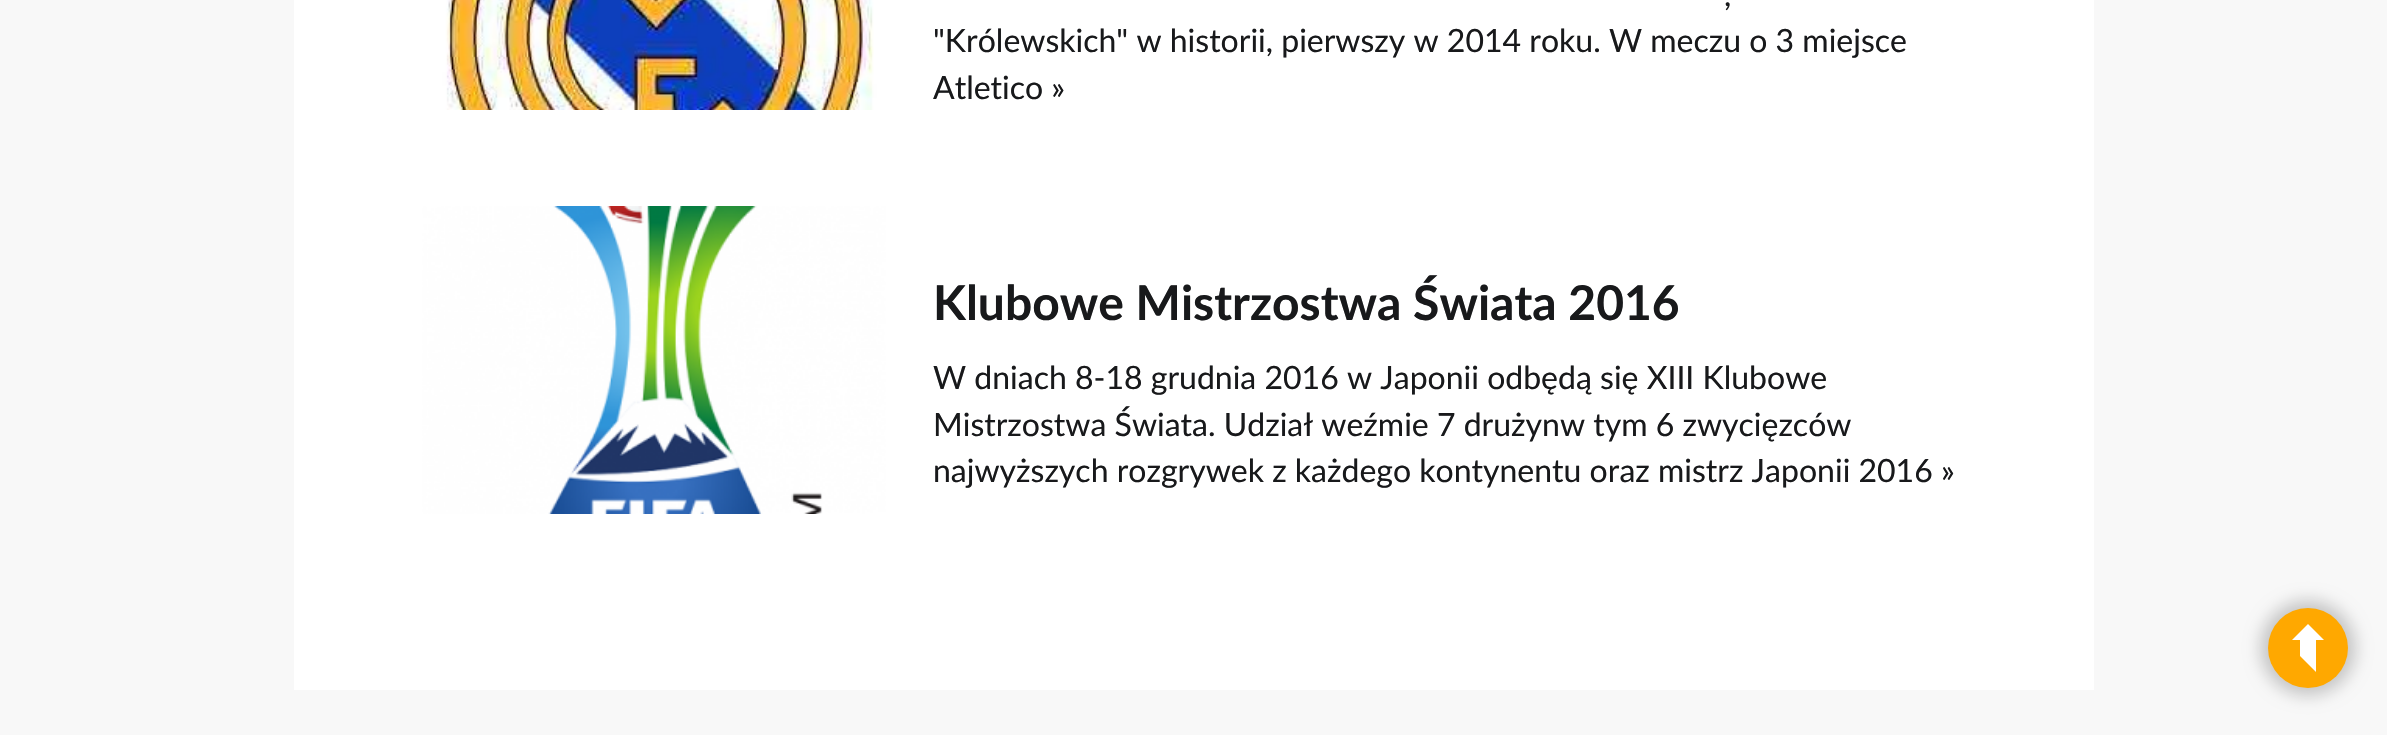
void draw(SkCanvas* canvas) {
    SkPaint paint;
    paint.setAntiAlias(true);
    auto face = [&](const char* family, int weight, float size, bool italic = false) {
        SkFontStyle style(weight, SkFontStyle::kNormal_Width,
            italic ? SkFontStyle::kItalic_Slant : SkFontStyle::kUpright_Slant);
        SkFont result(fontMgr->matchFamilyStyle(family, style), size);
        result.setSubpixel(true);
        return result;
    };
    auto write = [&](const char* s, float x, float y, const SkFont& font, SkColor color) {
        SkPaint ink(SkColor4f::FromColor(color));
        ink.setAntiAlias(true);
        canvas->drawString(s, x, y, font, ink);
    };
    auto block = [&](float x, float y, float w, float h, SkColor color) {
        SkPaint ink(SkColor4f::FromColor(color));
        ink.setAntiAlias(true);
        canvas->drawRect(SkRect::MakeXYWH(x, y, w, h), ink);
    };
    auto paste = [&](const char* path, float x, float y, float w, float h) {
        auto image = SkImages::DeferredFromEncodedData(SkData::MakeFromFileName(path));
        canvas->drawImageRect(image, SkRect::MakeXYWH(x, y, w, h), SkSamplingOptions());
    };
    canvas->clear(SkColorSetRGB(248, 248, 248));
    block(294, 0, 1800, 690, SK_ColorWHITE);
    paste("pic1.png", 422, 0, 464, 110);
    auto kFont1 = face("Lato", 400, 32);
    write(",", 1724, 6, kFont1, SkColorSetRGB(24, 25, 27));
    write("\"Królewskich\" w historii, pierwszy w 2014 roku. W meczu o 3 miejsce", 933, 52, kFont1, SkColorSetRGB(24, 25, 27));
    write("Atletico »", 933, 99, kFont1, SkColorSetRGB(24, 25, 27));
    paste("pic2.png", 422, 206, 464, 308);
    auto kFont2 = face("Lato", 700, 48);
    write("Klubowe Mistrzostwa Świata 2016", 933, 320, kFont2, SkColorSetRGB(24, 25, 27));
    write("W dniach 8-18 grudnia 2016 w Japonii odbędą się XIII Klubowe", 933, 389, kFont1, SkColorSetRGB(24, 25, 27));
    write("Mistrzostwa Świata. Udział weźmie 7 drużynw tym 6 zwycięzców", 933, 436, kFont1, SkColorSetRGB(24, 25, 27));
    write("najwyższych rozgrywek z każdego kontynentu oraz mistrz Japonii 2016 »", 933, 482, kFont1, SkColorSetRGB(24, 25, 27));
    paint.setColor(SkColorSetARGB(51, 0, 0, 0));
    paint.setMaskFilter(SkMaskFilter::MakeBlur(kNormal_SkBlurStyle, 8));
    canvas->drawRoundRect(SkRect::MakeXYWH(2260, 600, 96, 96), 48, 48, paint);
    paint.setMaskFilter(nullptr);
    paint.setColor(SkColorSetRGB(255, 168, 0));
    canvas->drawCircle(2308, 648, 40, paint);
    paint.setColor(SK_ColorWHITE);
    canvas->drawPath(SkPathBuilder().moveTo(2300, 640).lineTo(2292, 640).lineTo(2308, 624).lineTo(2324, 640).lineTo(2316, 640).lineTo(2316, 672).lineTo(2300, 656).close().detach(), paint);
}
